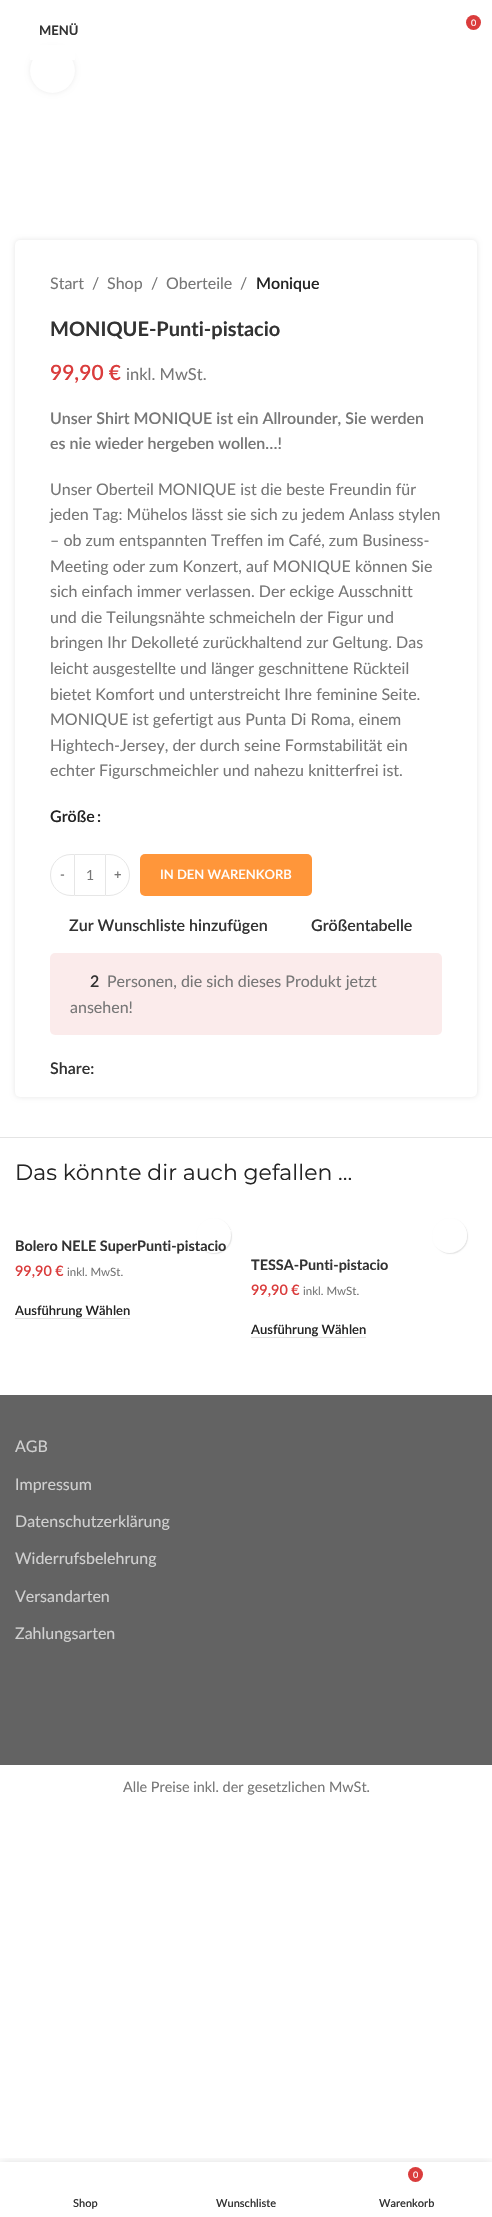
void draw(SkCanvas* canvas) {
    SkPaint paint;
    paint.setAntiAlias(true);
    auto face = [&](const char* family, int weight, float size, bool italic = false) {
        SkFontStyle style(weight, SkFontStyle::kNormal_Width,
            italic ? SkFontStyle::kItalic_Slant : SkFontStyle::kUpright_Slant);
        SkFont result(fontMgr->matchFamilyStyle(family, style), size);
        result.setSubpixel(true);
        return result;
    };
    auto write = [&](const char* s, float x, float y, const SkFont& font, SkColor color) {
        SkPaint ink(SkColor4f::FromColor(color));
        ink.setAntiAlias(true);
        canvas->drawString(s, x, y, font, ink);
    };
    auto block = [&](float x, float y, float w, float h, SkColor color) {
        SkPaint ink(SkColor4f::FromColor(color));
        ink.setAntiAlias(true);
        canvas->drawRect(SkRect::MakeXYWH(x, y, w, h), ink);
    };
    auto card = [&](float x, float y, float w, float h, float radius, SkColor color) {
        SkPaint ink(SkColor4f::FromColor(color));
        ink.setAntiAlias(true);
        canvas->drawRoundRect(SkRect::MakeXYWH(x, y, w, h), radius, radius, ink);
    };
    canvas->clear(SK_ColorWHITE);
    paint.setColor(SkColorSetARGB(20, 0, 0, 0));
    paint.setMaskFilter(SkMaskFilter::MakeBlur(kNormal_SkBlurStyle, 2.5f));
    canvas->drawRoundRect(SkRect::MakeXYWH(30, 48, 45, 45), 22.5f, 22.5f, paint);
    paint.setMaskFilter(nullptr);
    paint.setColor(SK_ColorWHITE);
    canvas->drawCircle(52.5f, 70.5f, 22.5f, paint);
    block(30, 45, 45, 15, SK_ColorWHITE);
    auto kFont1 = face("Lato", 700, 13);
    write("MENÜ", 39, 35, kFont1, SkColorSetRGB(51, 51, 51));
    paint.setColor(SkColorSetRGB(218, 60, 60));
    canvas->drawCircle(473.5f, 22.5f, 7.5f, paint);
    auto kFont2 = face("Lato", 400, 9);
    write("0", 471, 26, kFont2, SK_ColorWHITE);
    paint.setColor(SkColorSetARGB(26, 0, 0, 0));
    paint.setMaskFilter(SkMaskFilter::MakeBlur(kNormal_SkBlurStyle, 2.5f));
    canvas->drawRoundRect(SkRect::MakeXYWH(15, 240, 462, 857), 5, 5, paint);
    paint.setMaskFilter(nullptr);
    card(15, 240, 462, 857, 5, SK_ColorWHITE);
    auto kFont3 = face("Lato", 400, 16);
    write("Start", 50, 289, kFont3, SkColorSetRGB(119, 119, 119));
    write("/", 92, 289, kFont3, SkColorSetRGB(119, 119, 119));
    write("Shop", 107, 289, kFont3, SkColorSetRGB(119, 119, 119));
    write("/", 151, 289, kFont3, SkColorSetRGB(119, 119, 119));
    write("Oberteile", 166, 289, kFont3, SkColorSetRGB(119, 119, 119));
    write("/", 240, 289, kFont3, SkColorSetRGB(119, 119, 119));
    auto kFont4 = face("Lato", 600, 16);
    write("Monique", 256, 289, kFont4, SkColorSetRGB(36, 36, 36));
    auto kFont5 = face("Lato", 700, 20);
    write("MONIQUE-Punti-pistacio", 50, 336, kFont5, SkColorSetRGB(51, 51, 51));
    auto kFont6 = face("Lato", 600, 21);
    write("99,90 €", 50, 380, kFont6, SkColorSetRGB(218, 60, 60));
    auto kFont7 = face("Lato", 400, 16.5f);
    write("inkl. MwSt.", 126, 380, kFont7, SkColorSetRGB(119, 119, 119));
    write("Unser Shirt MONIQUE ist ein Allrounder, Sie werden", 50, 424, kFont4, SkColorSetRGB(119, 119, 119));
    write("es nie wieder hergeben wollen…!", 50, 449, kFont4, SkColorSetRGB(119, 119, 119));
    write("Unser Oberteil MONIQUE ist die beste Freundin für", 50, 495, kFont3, SkColorSetRGB(119, 119, 119));
    write("jeden Tag: Mühelos lässt sie sich zu jedem Anlass stylen", 50, 520, kFont3, SkColorSetRGB(119, 119, 119));
    write("– ob zum entspannten Treffen im Café, zum Business-", 50, 546, kFont3, SkColorSetRGB(119, 119, 119));
    write("Meeting oder zum Konzert, auf MONIQUE können Sie", 50, 572, kFont3, SkColorSetRGB(119, 119, 119));
    write("sich einfach immer verlassen. Der eckige Ausschnitt", 50, 597, kFont3, SkColorSetRGB(119, 119, 119));
    write("und die Teilungsnähte schmeicheln der Figur und", 50, 623, kFont3, SkColorSetRGB(119, 119, 119));
    write("bringen Ihr Dekolleté zurückhaltend zur Geltung. Das", 50, 648, kFont3, SkColorSetRGB(119, 119, 119));
    write("leicht ausgestellte und länger geschnittene Rückteil", 50, 674, kFont3, SkColorSetRGB(119, 119, 119));
    write("bietet Komfort und unterstreicht Ihre feminine Seite.", 50, 700, kFont3, SkColorSetRGB(119, 119, 119));
    write("MONIQUE ist gefertigt aus Punta Di Roma, einem", 50, 725, kFont3, SkColorSetRGB(119, 119, 119));
    write("Hightech-Jersey, der durch seine Formstabilität ein", 50, 751, kFont3, SkColorSetRGB(119, 119, 119));
    write("echter Figurschmeichler und nahezu knitterfrei ist.", 50, 776, kFont3, SkColorSetRGB(119, 119, 119));
    write("Größe", 50, 822, kFont4, SkColorSetRGB(36, 36, 36));
    write(":", 97, 822, kFont4, SkColorSetRGB(36, 36, 36));
    paint.setStyle(SkPaint::kStroke_Style);
    paint.setStrokeWidth(1);
    paint.setColor(SkColorSetRGB(230, 230, 230));
    canvas->drawPath(SkPathBuilder().moveTo(71, 854.5f).lineTo(74.5f, 854.5f).lineTo(74.5f, 895.5f).lineTo(71, 895.5f).cubicTo(59.5f, 895.5f, 50.5f, 886.5f, 50.5f, 875).cubicTo(50.5f, 863.5f, 59.5f, 854.5f, 71, 854.5f).close().detach(), paint);
    auto kFont8 = face("Lato", 600, 13);
    write("-", 60, 879, kFont8, SkColorSetRGB(119, 119, 119));
    block(75, 854, 30, 1, SkColorSetRGB(230, 230, 230));
    block(75, 895, 30, 1, SkColorSetRGB(230, 230, 230));
    auto kFont9 = face("Lato", 400, 14);
    write("1", 86, 880, kFont9, SkColorSetRGB(119, 119, 119));
    canvas->drawPath(SkPathBuilder().moveTo(105.5f, 854.5f).lineTo(109, 854.5f).cubicTo(120.5f, 854.5f, 129.5f, 863.5f, 129.5f, 875).cubicTo(129.5f, 886.5f, 120.5f, 895.5f, 109, 895.5f).lineTo(105.5f, 895.5f).close().detach(), paint);
    write("+", 114, 879, kFont8, SkColorSetRGB(119, 119, 119));
    card(140, 854, 172, 42, 5, SkColorSetRGB(255, 150, 58));
    write("IN DEN WARENKORB", 160, 879, kFont8, SK_ColorWHITE);
    write("Zur Wunschliste hinzufügen", 69, 931, kFont4, SkColorSetRGB(51, 51, 51));
    write("Größentabelle", 311, 931, kFont4, SkColorSetRGB(51, 51, 51));
    card(50, 953, 392, 82, 5, SkColorSetARGB(26, 218, 60, 60));
    write("2", 90, 987, kFont4, SkColorSetRGB(51, 51, 51));
    write("Personen, die sich dieses Produkt jetzt", 107, 987, kFont3, SkColorSetRGB(119, 119, 119));
    write("ansehen!", 70, 1013, kFont3, SkColorSetRGB(119, 119, 119));
    write("Share:", 50, 1074, kFont4, SkColorSetRGB(51, 51, 51));
    block(0, 1137, 492, 1, SkColorSetRGB(228, 228, 228));
    auto kFont10 = face("Montserrat", 400, 22);
    write("Das könnte dir auch gefallen …", 15, 1180, kFont10, SkColorSetRGB(36, 36, 36));
    canvas->save();
    canvas->clipPath(SkPathBuilder(SkPathFillType::kEvenOdd).moveTo(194, 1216).lineTo(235, 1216).lineTo(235, 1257).lineTo(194, 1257).close().moveTo(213.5f, 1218).cubicTo(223, 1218, 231, 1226, 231, 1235.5f).cubicTo(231, 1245, 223, 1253, 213.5f, 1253).cubicTo(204, 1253, 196, 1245, 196, 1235.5f).cubicTo(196, 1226, 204, 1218, 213.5f, 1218).close().detach(), true);
    paint.setStyle(SkPaint::kFill_Style);
    paint.setColor(SkColorSetARGB(26, 0, 0, 0));
    paint.setMaskFilter(SkMaskFilter::MakeBlur(kNormal_SkBlurStyle, 0.5f));
    canvas->drawRoundRect(SkRect::MakeXYWH(197, 1219, 35, 35), 17.5f, 17.5f, paint);
    paint.setMaskFilter(nullptr);
    canvas->restore();
    paint.setColor(SK_ColorWHITE);
    canvas->drawPath(SkPathBuilder().moveTo(213.5f, 1218).cubicTo(223, 1218, 231, 1226, 231, 1235.5f).lineTo(231, 1230).lineTo(196, 1230).lineTo(196, 1235.5f).cubicTo(196, 1226, 204, 1218, 213.5f, 1218).close().detach(), paint);
    auto kFont11 = face("Lato", 700, 14.4f);
    write("Bolero NELE SuperPunti-pistacio", 15, 1251, kFont11, SkColorSetRGB(51, 51, 51));
    auto kFont12 = face("Lato", 600, 14.4f);
    write("99,90 €", 15, 1276, kFont12, SkColorSetRGB(218, 60, 60));
    auto kFont13 = face("Lato", 400, 11.5f);
    write("inkl. MwSt.", 67, 1276, kFont13, SkColorSetRGB(119, 119, 119));
    block(15, 1318, 115, 1, SkColorSetRGB(228, 228, 228));
    write("Ausführung Wählen", 15, 1315, kFont8, SkColorSetRGB(36, 36, 36));
    canvas->save();
    canvas->clipPath(SkPathBuilder(SkPathFillType::kEvenOdd).moveTo(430, 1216).lineTo(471, 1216).lineTo(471, 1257).lineTo(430, 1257).close().moveTo(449.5f, 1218).cubicTo(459, 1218, 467, 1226, 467, 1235.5f).cubicTo(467, 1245, 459, 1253, 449.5f, 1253).cubicTo(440, 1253, 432, 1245, 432, 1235.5f).cubicTo(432, 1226, 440, 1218, 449.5f, 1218).close().detach(), true);
    paint.setColor(SkColorSetARGB(26, 0, 0, 0));
    paint.setMaskFilter(SkMaskFilter::MakeBlur(kNormal_SkBlurStyle, 0.5f));
    canvas->drawRoundRect(SkRect::MakeXYWH(433, 1219, 35, 35), 17.5f, 17.5f, paint);
    paint.setMaskFilter(nullptr);
    canvas->restore();
    canvas->save();
    canvas->clipPath(SkPathBuilder().moveTo(256, 1208).lineTo(472, 1208).cubicTo(475, 1208, 477, 1210, 477, 1213).lineTo(477, 1244).cubicTo(477, 1247, 475, 1249, 472, 1249).lineTo(256, 1249).cubicTo(253, 1249, 251, 1247, 251, 1244).lineTo(251, 1213).cubicTo(251, 1210, 253, 1208, 256, 1208).close().detach(), true);
    paint.setColor(SK_ColorWHITE);
    canvas->drawCircle(449.5f, 1235.5f, 17.5f, paint);
    canvas->restore();
    write("TESSA-Punti-pistacio", 251, 1270, kFont11, SkColorSetRGB(51, 51, 51));
    write("99,90 €", 251, 1295, kFont12, SkColorSetRGB(218, 60, 60));
    write("inkl. MwSt.", 303, 1295, kFont13, SkColorSetRGB(119, 119, 119));
    block(251, 1337, 115, 1, SkColorSetRGB(228, 228, 228));
    write("Ausführung Wählen", 251, 1334, kFont8, SkColorSetRGB(36, 36, 36));
    block(0, 1395, 492, 370, SkColorSetRGB(99, 99, 99));
    write("AGB", 15, 1452, kFont3, SkColorSetRGB(208, 208, 208));
    write("Impressum", 15, 1490, kFont3, SkColorSetRGB(208, 208, 208));
    write("Datenschutzerklärung", 15, 1527, kFont3, SkColorSetRGB(208, 208, 208));
    write("Widerrufsbelehrung", 15, 1564, kFont3, SkColorSetRGB(208, 208, 208));
    write("Versandarten", 15, 1602, kFont3, SkColorSetRGB(208, 208, 208));
    write("Zahlungsarten", 15, 1639, kFont3, SkColorSetRGB(208, 208, 208));
    auto kFont14 = face("Lato", 400, 14.4f);
    write("Alle Preise inkl. der gesetzlichen MwSt.", 123, 1792, kFont14, SkColorSetRGB(119, 119, 119));
    canvas->save();
    canvas->clipRect(SkRect::MakeXYWH(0, 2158, 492, 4));
    paint.setColor(SkColorSetARGB(31, 0, 0, 0));
    paint.setMaskFilter(SkMaskFilter::MakeBlur(kNormal_SkBlurStyle, 4.5f));
    canvas->drawRect(SkRect::MakeXYWH(0, 2162, 492, 55), paint);
    paint.setMaskFilter(nullptr);
    canvas->restore();
    auto kFont15 = face("Lato", 600, 11);
    write("Shop", 73, 2207, kFont15, SkColorSetRGB(51, 51, 51));
    write("Wunschliste", 216, 2207, kFont15, SkColorSetRGB(51, 51, 51));
    paint.setColor(SkColorSetRGB(218, 60, 60));
    canvas->drawCircle(415.5f, 2174.5f, 7.5f, paint);
    write("0", 413, 2178, kFont2, SK_ColorWHITE);
    write("Warenkorb", 379, 2207, kFont15, SkColorSetRGB(51, 51, 51));
}
